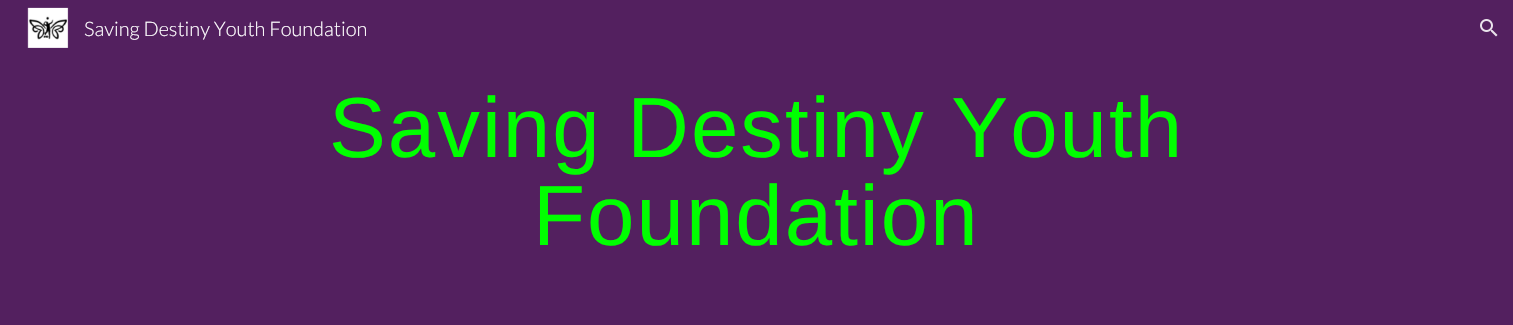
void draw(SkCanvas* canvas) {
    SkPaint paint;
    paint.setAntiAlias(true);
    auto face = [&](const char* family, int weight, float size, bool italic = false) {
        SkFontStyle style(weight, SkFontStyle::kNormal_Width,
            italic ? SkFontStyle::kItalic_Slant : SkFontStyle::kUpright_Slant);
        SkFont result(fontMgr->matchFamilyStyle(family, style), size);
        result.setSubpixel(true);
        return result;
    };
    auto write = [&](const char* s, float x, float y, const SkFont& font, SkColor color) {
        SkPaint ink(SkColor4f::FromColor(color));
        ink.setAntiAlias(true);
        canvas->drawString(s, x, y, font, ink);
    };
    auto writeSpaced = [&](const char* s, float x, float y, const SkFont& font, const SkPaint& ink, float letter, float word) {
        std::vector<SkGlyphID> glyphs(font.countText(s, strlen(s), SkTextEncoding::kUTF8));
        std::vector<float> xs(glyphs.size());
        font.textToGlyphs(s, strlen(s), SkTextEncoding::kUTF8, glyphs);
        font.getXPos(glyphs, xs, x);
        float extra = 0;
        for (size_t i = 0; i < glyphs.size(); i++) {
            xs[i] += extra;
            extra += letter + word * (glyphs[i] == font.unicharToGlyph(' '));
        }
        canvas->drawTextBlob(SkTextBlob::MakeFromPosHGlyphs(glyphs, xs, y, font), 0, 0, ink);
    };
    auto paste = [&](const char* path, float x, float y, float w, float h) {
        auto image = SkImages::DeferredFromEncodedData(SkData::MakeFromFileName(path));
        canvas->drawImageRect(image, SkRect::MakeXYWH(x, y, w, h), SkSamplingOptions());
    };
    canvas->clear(SkColorSetRGB(83, 32, 95));
    paste("pic1.png", 27, 7, 42, 41);
    auto kFont1 = face("Lato", 300, 20);
    write("Saving Destiny Youth Foundation", 84, 36, kFont1, SK_ColorWHITE);
    paste("pic2.png", 1480, 19, 18, 18);
    auto kFont2 = face("Liberation Sans", 400, 85.25f);
    paint.setColor(SkColorSetRGB(0, 255, 0));
    writeSpaced("Saving Destiny Youth", 329, 157, kFont2, paint, 2, 0);
    writeSpaced("Foundation", 533, 245, kFont2, paint, 2, 0);
}
